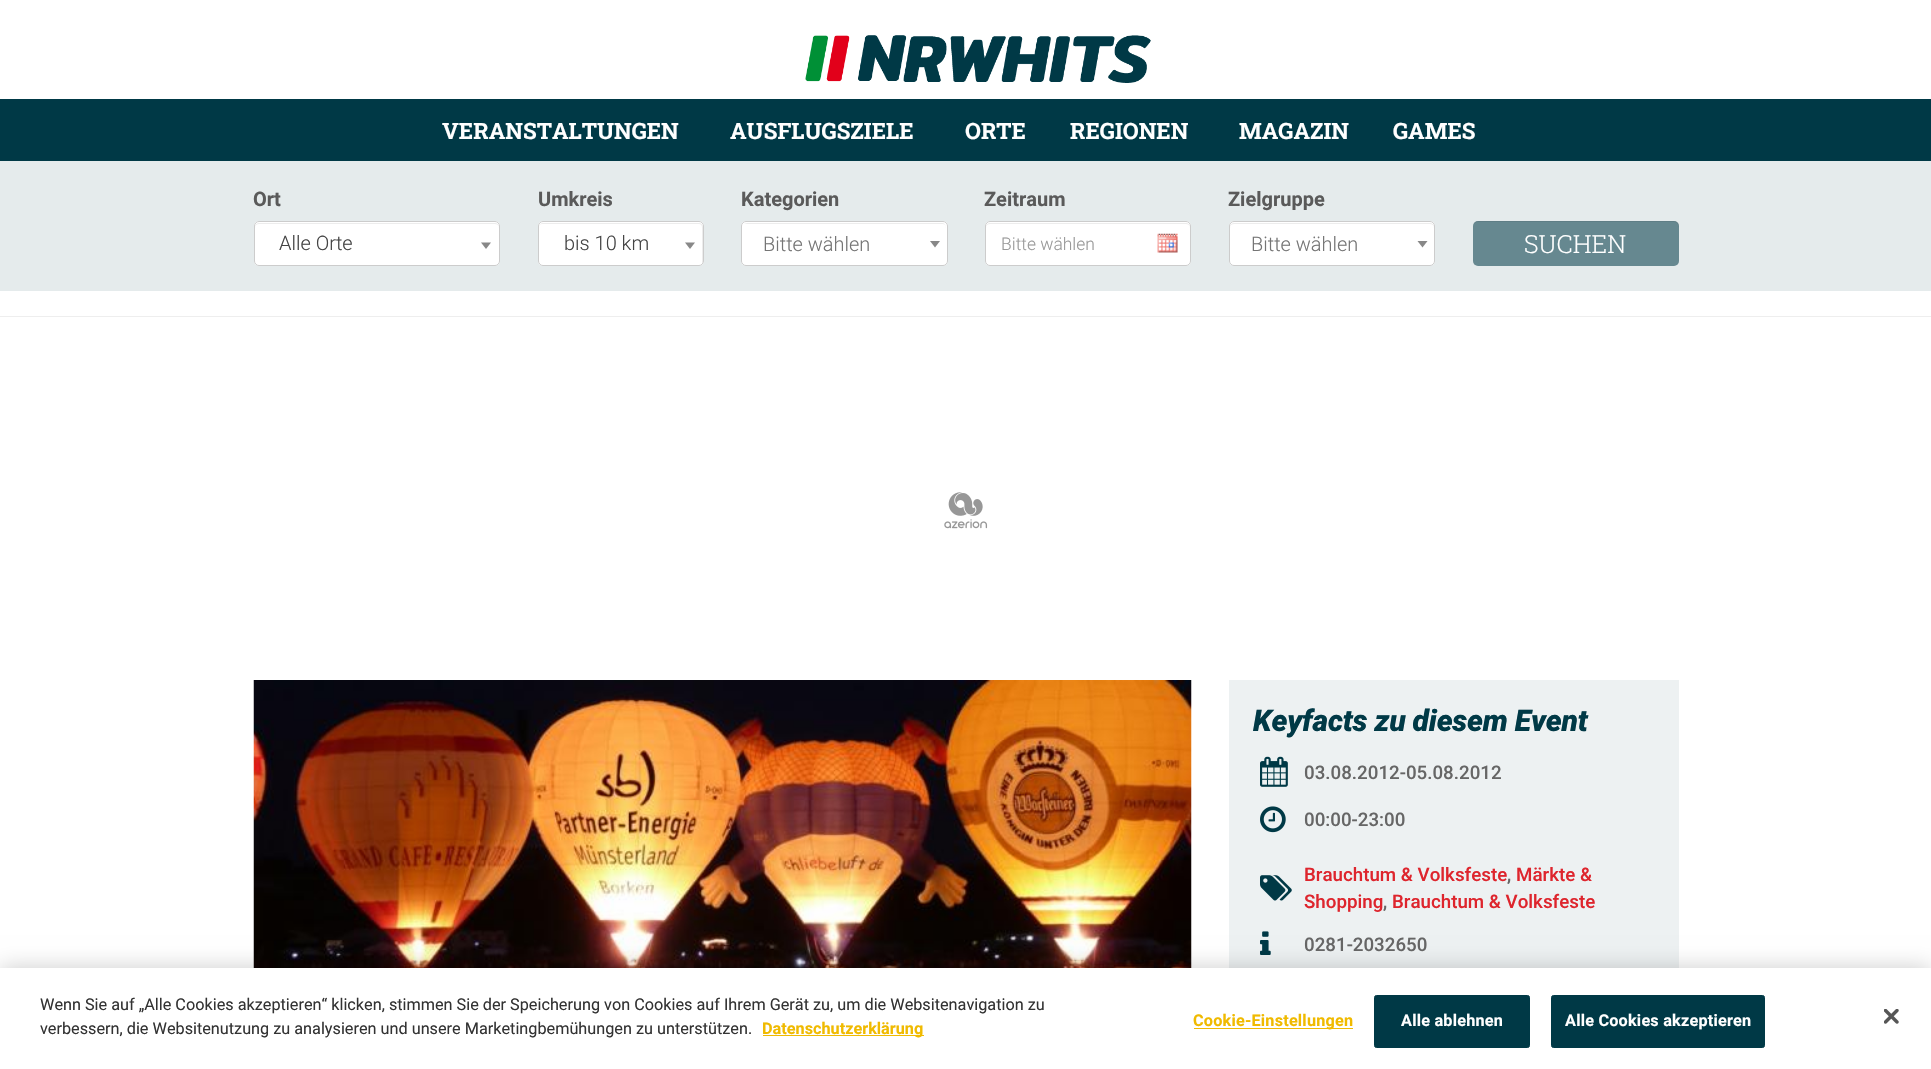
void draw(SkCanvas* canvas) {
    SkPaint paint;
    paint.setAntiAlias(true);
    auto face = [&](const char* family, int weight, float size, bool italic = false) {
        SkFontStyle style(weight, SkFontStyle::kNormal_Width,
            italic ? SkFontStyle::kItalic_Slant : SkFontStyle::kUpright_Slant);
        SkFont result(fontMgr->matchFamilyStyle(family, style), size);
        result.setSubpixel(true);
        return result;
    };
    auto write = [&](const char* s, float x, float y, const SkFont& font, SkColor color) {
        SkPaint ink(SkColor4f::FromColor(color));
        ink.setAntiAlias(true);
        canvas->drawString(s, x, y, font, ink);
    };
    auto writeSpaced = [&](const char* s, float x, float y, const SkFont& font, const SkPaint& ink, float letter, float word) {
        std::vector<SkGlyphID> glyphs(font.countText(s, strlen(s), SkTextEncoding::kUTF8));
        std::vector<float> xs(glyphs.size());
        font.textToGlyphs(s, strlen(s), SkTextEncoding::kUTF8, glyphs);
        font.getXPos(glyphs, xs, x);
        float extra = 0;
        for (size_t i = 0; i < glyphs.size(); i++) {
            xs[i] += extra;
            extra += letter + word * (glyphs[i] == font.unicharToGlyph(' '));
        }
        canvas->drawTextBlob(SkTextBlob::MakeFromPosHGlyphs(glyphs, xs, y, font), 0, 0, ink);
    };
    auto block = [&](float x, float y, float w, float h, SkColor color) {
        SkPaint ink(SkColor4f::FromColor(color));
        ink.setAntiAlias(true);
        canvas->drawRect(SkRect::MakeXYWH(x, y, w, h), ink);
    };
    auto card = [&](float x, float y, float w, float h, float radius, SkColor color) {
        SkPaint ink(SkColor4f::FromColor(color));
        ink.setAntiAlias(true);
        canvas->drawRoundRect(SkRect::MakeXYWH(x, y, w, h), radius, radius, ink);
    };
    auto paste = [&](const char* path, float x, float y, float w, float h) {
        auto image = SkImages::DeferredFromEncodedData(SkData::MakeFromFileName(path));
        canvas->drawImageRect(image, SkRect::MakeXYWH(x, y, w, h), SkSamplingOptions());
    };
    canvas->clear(SK_ColorWHITE);
    block(0, 316, 1931, 1, SkColorSetRGB(238, 238, 238));
    paste("pic1.png", 805, 35, 346, 48);
    block(0, 99, 1931, 62, SkColorSetRGB(0, 57, 70));
    auto kFont1 = face("Roboto Slab", 700, 22.5f);
    write("VERANSTALTUNGEN", 442, 139, kFont1, SK_ColorWHITE);
    write("AUSFLUGSZIELE", 730, 139, kFont1, SK_ColorWHITE);
    write("ORTE", 965, 139, kFont1, SK_ColorWHITE);
    write("REGIONEN", 1070, 139, kFont1, SK_ColorWHITE);
    write("MAGAZIN", 1239, 139, kFont1, SK_ColorWHITE);
    write("GAMES", 1393, 139, kFont1, SK_ColorWHITE);
    block(0, 161, 1931, 130, SkColorSetRGB(229, 235, 236));
    auto kFont2 = face("Roboto", 700, 20);
    write("Ort", 253, 206, kFont2, SkColorSetRGB(90, 90, 90));
    card(254, 221, 246, 45, 5, SK_ColorWHITE);
    paint.setColor(SkColorSetRGB(236, 236, 236));
    canvas->drawPath(SkPathBuilder().moveTo(259, 224).lineTo(495, 224).cubicTo(497, 224, 499, 225, 499, 228).lineTo(499, 227).cubicTo(499, 225, 497, 223, 495, 223).lineTo(259, 223).cubicTo(257, 223, 255, 225, 255, 227).lineTo(255, 228).cubicTo(255, 225, 257, 224, 259, 224).close().detach(), paint);
    paint.setStyle(SkPaint::kStroke_Style);
    paint.setStrokeWidth(1);
    paint.setColor(SkColorSetRGB(204, 204, 204));
    canvas->drawRoundRect(SkRect::MakeXYWH(254.5f, 221.5f, 245, 44), 4.5f, 4.5f, paint);
    auto kFont3 = face("Roboto", 300, 20);
    write("Alle Orte", 279, 250, kFont3, SkColorSetRGB(68, 68, 68));
    paint.setStyle(SkPaint::kFill_Style);
    paint.setColor(SkColorSetRGB(136, 136, 136));
    canvas->drawPath(SkPathBuilder().moveTo(481, 242.5f).lineTo(491, 242.5f).lineTo(486, 249).close().detach(), paint);
    write("Umkreis", 538, 206, kFont2, SkColorSetRGB(90, 90, 90));
    card(538, 221, 166, 45, 5, SK_ColorWHITE);
    paint.setColor(SkColorSetRGB(236, 236, 236));
    canvas->drawPath(SkPathBuilder().moveTo(542, 224).lineTo(699, 224).cubicTo(701, 224, 702, 225, 702, 228).lineTo(702, 264).cubicTo(703, 263, 703, 262, 703, 261).lineTo(703, 227).cubicTo(703, 225, 701, 223, 699, 223).lineTo(543, 223).cubicTo(541, 223, 539, 225, 539, 227).lineTo(539, 228).cubicTo(539, 225, 540, 224, 542, 224).close().detach(), paint);
    paint.setStyle(SkPaint::kStroke_Style);
    paint.setColor(SkColorSetRGB(204, 204, 204));
    canvas->drawRoundRect(SkRect::MakeXYWH(538.5f, 221.5f, 165, 44), 4.5f, 4.5f, paint);
    write("bis 10 km", 564, 250, kFont3, SkColorSetRGB(68, 68, 68));
    paint.setStyle(SkPaint::kFill_Style);
    paint.setColor(SkColorSetRGB(136, 136, 136));
    canvas->drawPath(SkPathBuilder().moveTo(685, 242.5f).lineTo(695, 242.5f).lineTo(690, 249).close().detach(), paint);
    write("Kategorien", 741, 206, kFont2, SkColorSetRGB(90, 90, 90));
    card(741, 221, 207, 45, 5, SK_ColorWHITE);
    paint.setColor(SkColorSetRGB(236, 236, 236));
    canvas->drawPath(SkPathBuilder().moveTo(746, 224).lineTo(942, 224).cubicTo(945, 224, 946, 225, 946, 228).lineTo(946, 227).cubicTo(946, 225, 944, 223, 942, 223).lineTo(747, 223).cubicTo(746, 223, 745, 224, 744, 224).close().detach(), paint);
    paint.setStyle(SkPaint::kStroke_Style);
    paint.setColor(SkColorSetRGB(204, 204, 204));
    canvas->drawRoundRect(SkRect::MakeXYWH(741.5f, 221.5f, 206, 44), 4.5f, 4.5f, paint);
    write("Bitte wählen", 763, 251, kFont3, SkColorSetRGB(117, 117, 117));
    paint.setStyle(SkPaint::kFill_Style);
    paint.setColor(SkColorSetRGB(136, 136, 136));
    canvas->drawPath(SkPathBuilder().moveTo(930, 241).lineTo(940, 241).lineTo(935, 247.5f).close().detach(), paint);
    write("Zeitraum", 984, 206, kFont2, SkColorSetRGB(90, 90, 90));
    card(985, 221, 206, 45, 5, SK_ColorWHITE);
    paint.setColor(SkColorSetRGB(236, 236, 236));
    canvas->drawPath(SkPathBuilder().moveTo(990, 224).lineTo(1186, 224).cubicTo(1188, 224, 1190, 225, 1190, 228).lineTo(1190, 227).cubicTo(1190, 225, 1188, 223, 1186, 223).lineTo(990, 223).cubicTo(988, 223, 986, 225, 986, 227).lineTo(986, 228).cubicTo(986, 225, 988, 224, 990, 224).close().detach(), paint);
    paint.setStyle(SkPaint::kStroke_Style);
    paint.setColor(SkColorSetRGB(204, 204, 204));
    canvas->drawRoundRect(SkRect::MakeXYWH(985.5f, 221.5f, 205, 44), 4.5f, 4.5f, paint);
    auto kFont4 = face("Roboto", 300, 17.5f);
    write("Bitte wählen", 1001, 250, kFont4, SkColorSetRGB(153, 153, 153));
    paste("pic2.png", 1157, 233, 21, 20);
    write("Zielgruppe", 1228, 206, kFont2, SkColorSetRGB(90, 90, 90));
    card(1229, 221, 206, 45, 5, SK_ColorWHITE);
    paint.setStyle(SkPaint::kFill_Style);
    paint.setColor(SkColorSetRGB(236, 236, 236));
    canvas->drawPath(SkPathBuilder().moveTo(1234, 224).lineTo(1430, 224).cubicTo(1432, 224, 1434, 225, 1434, 228).lineTo(1434, 227).cubicTo(1434, 225, 1432, 223, 1430, 223).lineTo(1234, 223).cubicTo(1232, 223, 1230, 225, 1230, 227).lineTo(1230, 228).cubicTo(1230, 225, 1232, 224, 1234, 224).close().detach(), paint);
    paint.setStyle(SkPaint::kStroke_Style);
    paint.setColor(SkColorSetRGB(204, 204, 204));
    canvas->drawRoundRect(SkRect::MakeXYWH(1229.5f, 221.5f, 205, 44), 4.5f, 4.5f, paint);
    write("Bitte wählen", 1251, 251, kFont3, SkColorSetRGB(117, 117, 117));
    paint.setStyle(SkPaint::kFill_Style);
    paint.setColor(SkColorSetRGB(136, 136, 136));
    canvas->drawPath(SkPathBuilder().moveTo(1417.5f, 241).lineTo(1427.5f, 241).lineTo(1422.5f, 247.5f).close().detach(), paint);
    card(1473, 221, 206, 45, 5, SkColorSetRGB(102, 136, 144));
    paint.setColor(SkColorSetARGB(18, 0, 0, 0));
    canvas->drawPath(SkPathBuilder().moveTo(1478, 222).lineTo(1674, 222).cubicTo(1677, 222, 1679, 225, 1679, 228).lineTo(1679, 226).cubicTo(1679, 223, 1677, 221, 1674, 221).lineTo(1478, 221).cubicTo(1476, 221, 1474, 223, 1473, 225).cubicTo(1474, 223, 1476, 222, 1478, 222).close().detach(), paint);
    auto kFont5 = face("Roboto Slab", 300, 25);
    write("SUCHEN", 1524, 253, kFont5, SK_ColorWHITE);
    paste("pic3.png", 944, 492, 44, 37);
    paste("pic4.png", 253, 680, 939, 288);
    block(1229, 680, 450, 288, SkColorSetRGB(237, 241, 242));
    auto kFont6 = face("Roboto", 900, 30, true);
    paint.setColor(SkColorSetRGB(0, 57, 70));
    writeSpaced("Keyfacts zu diesem Event", 1253, 731, kFont6, paint, -0.3f, 0);
    paste("pic5.png", 1260, 756, 28, 31);
    auto kFont7 = face("Roboto", 500, 18.75f);
    write("03.08.2012-05.08.2012", 1304, 779, kFont7, SkColorSetRGB(102, 102, 102));
    paste("pic6.png", 1260, 806, 26, 27);
    write("00:00-23:00", 1304, 826, kFont7, SkColorSetRGB(102, 102, 102));
    paste("pic7.png", 1260, 875, 32, 26);
    write("Brauchtum & Volksfeste", 1304, 881, kFont7, SkColorSetRGB(222, 37, 45));
    write(",", 1507, 881, kFont7, SkColorSetRGB(102, 102, 102));
    write("Märkte &", 1516, 881, kFont7, SkColorSetRGB(222, 37, 45));
    write("Shopping", 1304, 908, kFont7, SkColorSetRGB(222, 37, 45));
    write(",", 1383, 908, kFont7, SkColorSetRGB(102, 102, 102));
    write("Brauchtum & Volksfeste", 1392, 908, kFont7, SkColorSetRGB(222, 37, 45));
    paste("pic8.png", 1260, 931, 11, 24);
    write("0281-2032650", 1304, 951, kFont7, SkColorSetRGB(102, 102, 102));
    paint.setColor(SkColorSetARGB(51, 0, 0, 0));
    paint.setMaskFilter(SkMaskFilter::MakeBlur(kNormal_SkBlurStyle, 11));
    canvas->drawRect(SkRect::MakeXYWH(0, 968, 1931, 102), paint);
    paint.setMaskFilter(nullptr);
    block(0, 968, 1931, 101, SK_ColorWHITE);
    auto kFont8 = face("Roboto", 400, 16.25f);
    write("Wenn Sie auf „Alle Cookies akzeptieren“ klicken, stimmen Sie der Speicherung von Cookies auf Ihrem Gerät zu, um die Websitenavigation zu", 40, 1010, kFont8, SkColorSetRGB(51, 51, 51));
    write("verbessern, die Websitenutzung zu analysieren und unsere Marketingbemühungen zu unterstützen.", 40, 1034, kFont8, SkColorSetRGB(51, 51, 51));
    block(763, 1035, 161, 1, SkColorSetRGB(240, 186, 0));
    auto kFont9 = face("Roboto", 700, 16.25f);
    write("Datenschutzerklärung", 762, 1034, kFont9, SkColorSetRGB(240, 186, 0));
    block(1194, 1028, 159, 1, SkColorSetRGB(240, 186, 0));
    paint.setColor(SkColorSetRGB(240, 186, 0));
    writeSpaced("Cookie-Einstellungen", 1193, 1026, kFont9, paint, 0.2f, 0);
    paint.setColor(SkColorSetRGB(0, 57, 70));
    canvas->drawRoundRect(SkRect::MakeXYWH(1374.5f, 995.5f, 155, 52), 2, 2, paint);
    paint.setStyle(SkPaint::kStroke_Style);
    canvas->drawRoundRect(SkRect::MakeXYWH(1374.5f, 995.5f, 155, 52), 2, 2, paint);
    paint.setStyle(SkPaint::kFill_Style);
    paint.setColor(SK_ColorWHITE);
    writeSpaced("Alle ablehnen", 1401, 1026, kFont9, paint, 0.2f, 0);
    paint.setColor(SkColorSetRGB(0, 57, 70));
    canvas->drawRoundRect(SkRect::MakeXYWH(1551.5f, 995.5f, 213, 52), 2, 2, paint);
    paint.setStyle(SkPaint::kStroke_Style);
    canvas->drawRoundRect(SkRect::MakeXYWH(1551.5f, 995.5f, 213, 52), 2, 2, paint);
    paint.setStyle(SkPaint::kFill_Style);
    paint.setColor(SK_ColorWHITE);
    writeSpaced("Alle Cookies akzeptieren", 1565, 1026, kFont9, paint, 0.2f, 0);
    paste("pic9.png", 1884, 1009, 15, 15);
}
